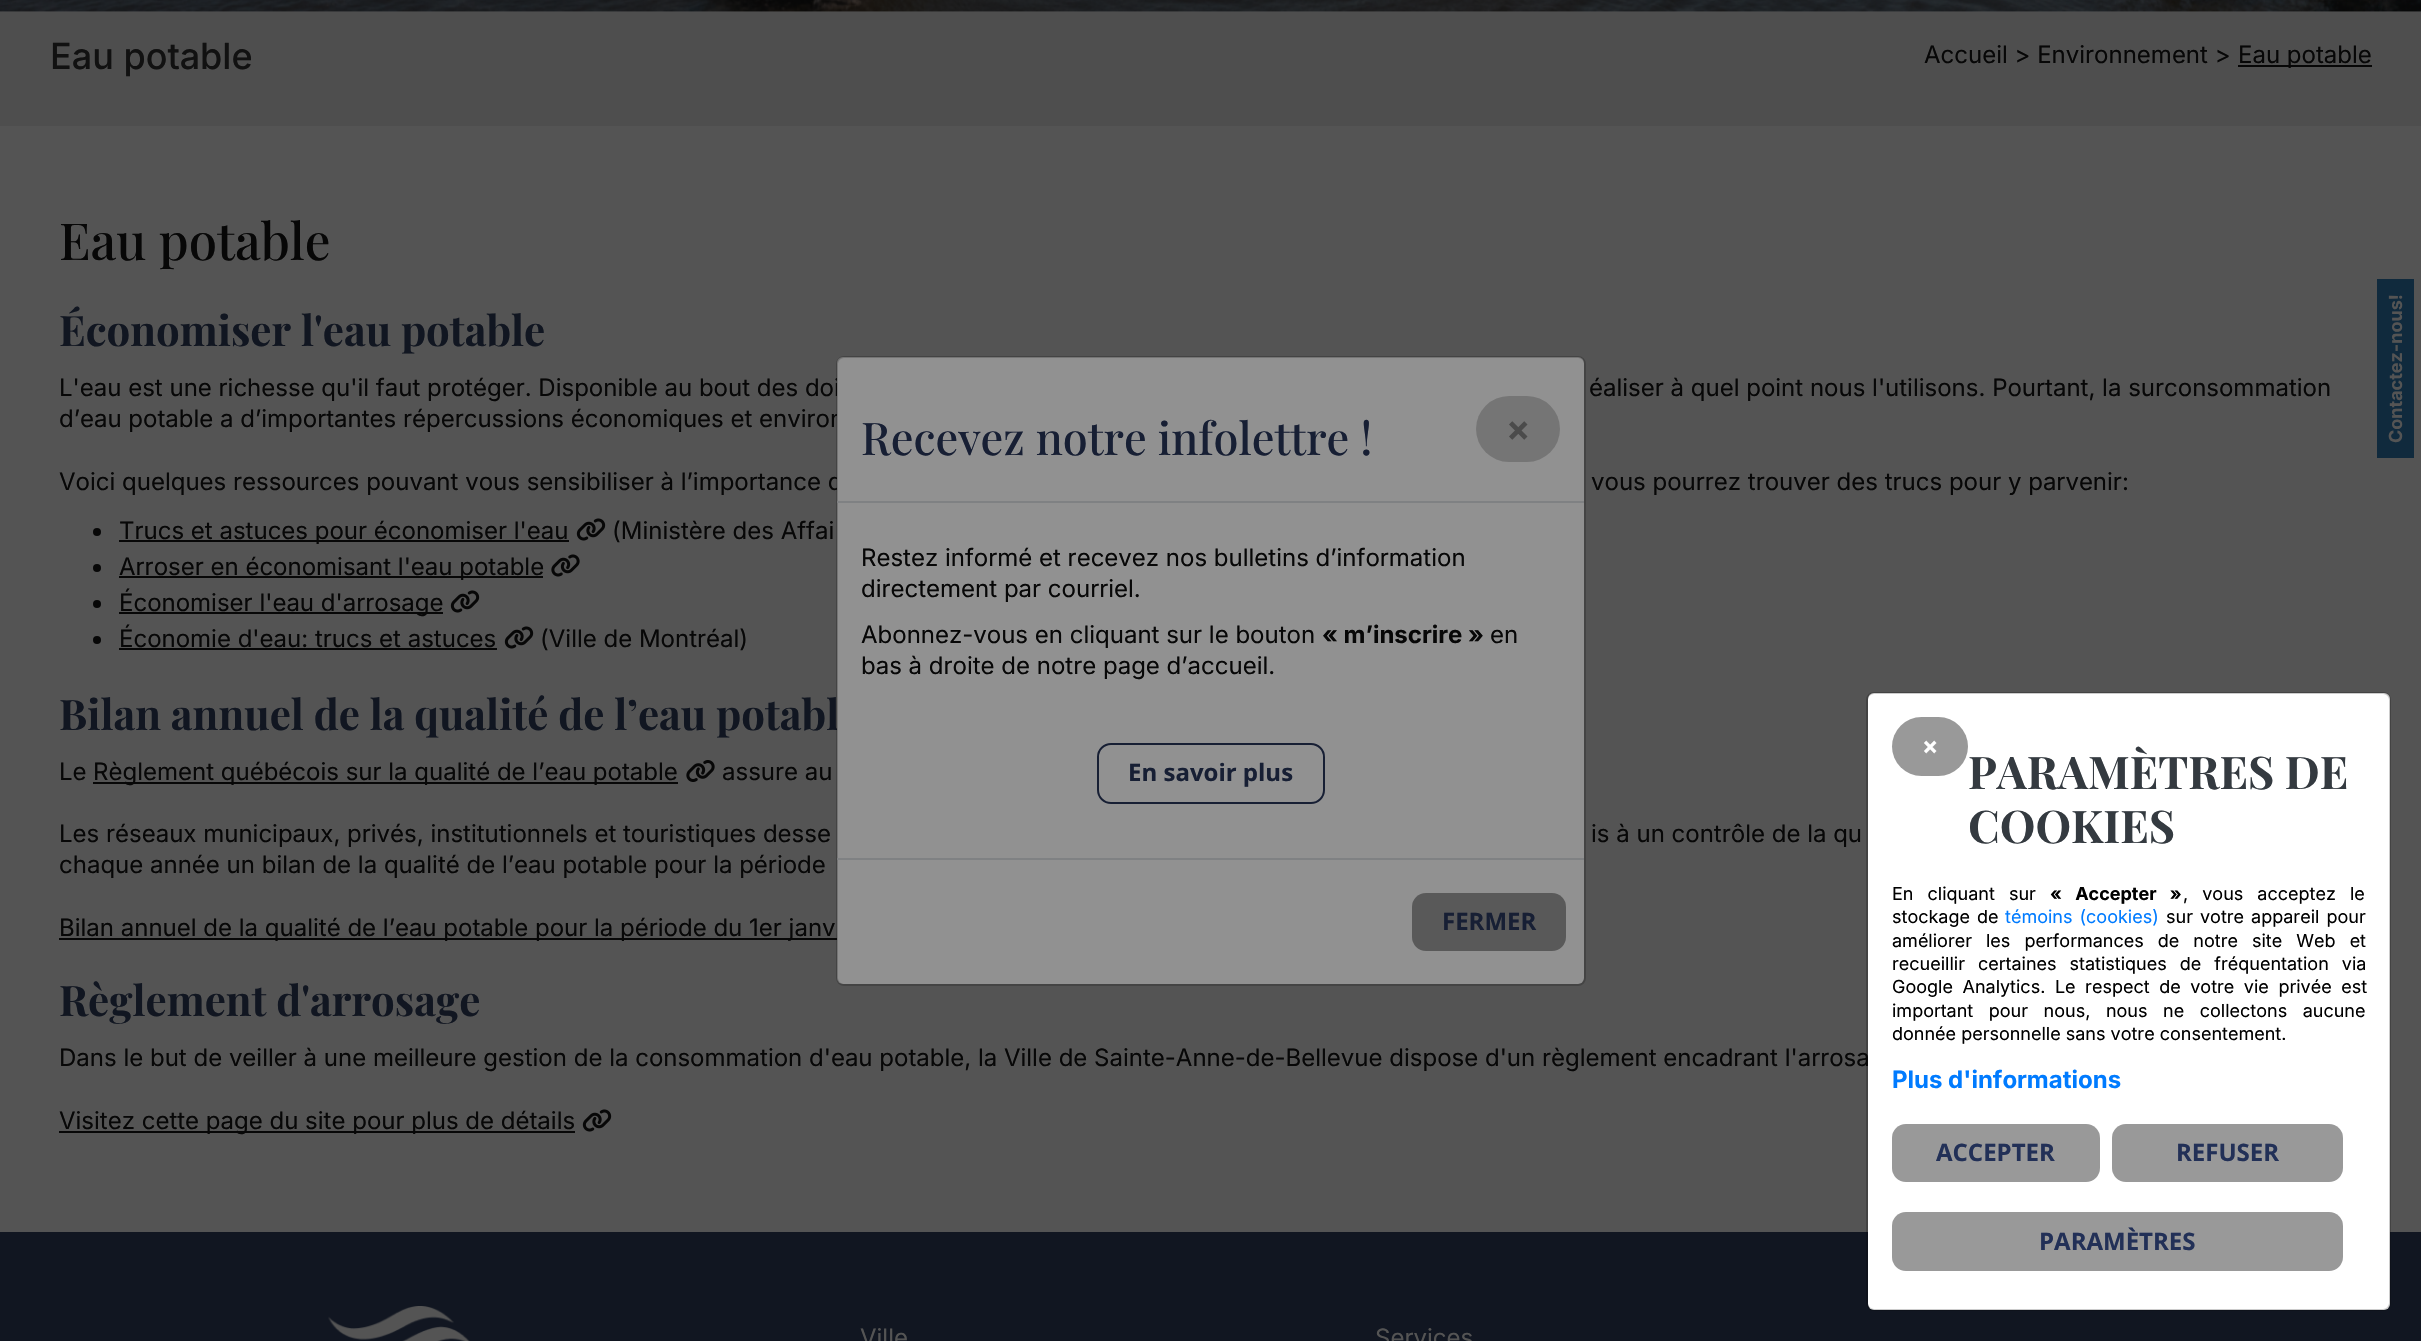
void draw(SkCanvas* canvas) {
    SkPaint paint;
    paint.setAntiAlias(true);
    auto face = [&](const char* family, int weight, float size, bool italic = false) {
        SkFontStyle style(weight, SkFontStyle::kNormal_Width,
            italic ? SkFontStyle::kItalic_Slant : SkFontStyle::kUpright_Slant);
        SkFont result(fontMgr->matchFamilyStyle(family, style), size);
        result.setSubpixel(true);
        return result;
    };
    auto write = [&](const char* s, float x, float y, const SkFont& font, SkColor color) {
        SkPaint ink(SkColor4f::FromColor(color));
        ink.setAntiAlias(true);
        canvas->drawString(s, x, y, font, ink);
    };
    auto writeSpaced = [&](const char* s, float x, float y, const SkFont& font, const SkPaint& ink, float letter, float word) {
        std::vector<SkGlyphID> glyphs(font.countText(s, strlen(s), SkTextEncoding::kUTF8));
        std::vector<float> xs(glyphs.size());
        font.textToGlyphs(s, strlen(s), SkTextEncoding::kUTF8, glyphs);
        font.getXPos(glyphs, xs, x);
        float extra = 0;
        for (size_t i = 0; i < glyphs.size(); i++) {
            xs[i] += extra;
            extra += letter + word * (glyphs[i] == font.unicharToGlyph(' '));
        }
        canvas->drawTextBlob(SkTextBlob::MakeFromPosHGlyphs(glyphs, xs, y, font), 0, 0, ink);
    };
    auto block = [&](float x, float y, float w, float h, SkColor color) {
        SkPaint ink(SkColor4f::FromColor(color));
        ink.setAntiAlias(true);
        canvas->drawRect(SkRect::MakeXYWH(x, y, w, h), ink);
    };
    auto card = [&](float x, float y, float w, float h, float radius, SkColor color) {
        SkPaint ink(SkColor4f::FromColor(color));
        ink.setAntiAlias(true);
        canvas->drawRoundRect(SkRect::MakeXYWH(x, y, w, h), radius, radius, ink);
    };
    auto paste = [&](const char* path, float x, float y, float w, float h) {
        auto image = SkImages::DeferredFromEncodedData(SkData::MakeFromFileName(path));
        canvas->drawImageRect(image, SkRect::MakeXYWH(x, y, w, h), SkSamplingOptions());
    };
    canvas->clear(SkColorSetRGB(84, 84, 84));
    paste("pic1.png", 0, 0, 2421, 12);
    block(0, 12, 2421, 114, SkColorSetRGB(78, 78, 78));
    auto kFont1 = face("Inter", 500, 36);
    write("Eau potable", 50, 69, kFont1, SkColorSetRGB(17, 17, 17));
    auto kFont2 = face("Inter", 400, 24);
    write("Accueil > Environnement >", 1924, 63, kFont2, SkColorSetRGB(7, 7, 7));
    block(2238, 65, 134, 2, SkColorSetRGB(7, 7, 7));
    write("Eau potable", 2238, 63, kFont2, SkColorSetRGB(7, 7, 7));
    auto kFont3 = face("Playfair Display", 500, 51);
    write("Eau potable", 59, 260, kFont3, SkColorSetRGB(7, 7, 7));
    auto kFont4 = face("Playfair Display", 700, 42);
    write("Économiser l'eau potable", 59, 346, kFont4, SkColorSetRGB(17, 22, 33));
    write("L'eau est une richesse qu'il faut protéger. Disponible au bout des doi", 59, 396, kFont2, SkColorSetRGB(7, 7, 7));
    write("éaliser à quel point nous l'utilisons. Pourtant, la surconsommation", 1589, 396, kFont2, SkColorSetRGB(7, 7, 7));
    write("d’eau potable a d’importantes répercussions économiques et environ", 59, 427, kFont2, SkColorSetRGB(7, 7, 7));
    write("Voici quelques ressources pouvant vous sensibiliser à l’importance d", 59, 490, kFont2, SkColorSetRGB(7, 7, 7));
    write("vous pourrez trouver des trucs pour y parvenir:", 1591, 490, kFont2, SkColorSetRGB(7, 7, 7));
    paint.setColor(SkColorSetRGB(7, 7, 7));
    canvas->drawCircle(97, 532, 4, paint);
    block(119, 540, 450, 2, SkColorSetRGB(7, 7, 7));
    write("Trucs et astuces pour économiser l'eau", 119, 539, kFont2, SkColorSetRGB(7, 7, 7));
    paste("pic2.png", 576, 518, 30, 23);
    write("(Ministère des Affai", 612, 539, kFont2, SkColorSetRGB(7, 7, 7));
    canvas->drawCircle(97, 568, 4, paint);
    block(119, 576, 424, 2, SkColorSetRGB(7, 7, 7));
    write("Arroser en économisant l'eau potable", 119, 575, kFont2, SkColorSetRGB(7, 7, 7));
    paste("pic3.png", 551, 554, 29, 23);
    canvas->drawCircle(97, 604, 4, paint);
    block(119, 612, 324, 2, SkColorSetRGB(7, 7, 7));
    write("Économiser l'eau d'arrosage", 119, 611, kFont2, SkColorSetRGB(7, 7, 7));
    paste("pic2.png", 450, 590, 30, 23);
    canvas->drawCircle(97, 640, 4, paint);
    write("Économie d'eau: trucs et astuces", 119, 647, kFont2, SkColorSetRGB(7, 7, 7));
    block(119, 648, 378, 2, SkColorSetRGB(7, 7, 7));
    paste("pic2.png", 504, 626, 30, 23);
    write("(Ville de Montréal)", 540, 647, kFont2, SkColorSetRGB(7, 7, 7));
    write("Bilan annuel de la qualité de l’eau potabl", 59, 730, kFont4, SkColorSetRGB(17, 22, 33));
    write("Le", 59, 780, kFont2, SkColorSetRGB(7, 7, 7));
    block(93, 782, 585, 2, SkColorSetRGB(7, 7, 7));
    write("Règlement québécois sur la qualité de l’eau potable", 93, 780, kFont2, SkColorSetRGB(7, 7, 7));
    paste("pic4.png", 686, 760, 29, 22);
    write("assure au", 722, 780, kFont2, SkColorSetRGB(7, 7, 7));
    write("Les réseaux municipaux, privés, institutionnels et touristiques desse", 59, 842, kFont2, SkColorSetRGB(7, 7, 7));
    write("is à un contrôle de la qu", 1591, 842, kFont2, SkColorSetRGB(7, 7, 7));
    write("chaque année un bilan de la qualité de l’eau potable pour la période", 59, 873, kFont2, SkColorSetRGB(7, 7, 7));
    block(59, 938, 778, 2, SkColorSetRGB(7, 7, 7));
    write("Bilan annuel de la qualité de l’eau potable pour la période du 1er janv", 59, 936, kFont2, SkColorSetRGB(7, 7, 7));
    write("Règlement d'arrosage", 59, 1016, kFont4, SkColorSetRGB(17, 22, 33));
    write("Dans le but de veiller à une meilleure gestion de la consommation d'eau potable, la Ville de Sainte-Anne-de-Bellevue dispose d'un règlement encadrant l'arrosa", 59, 1066, kFont2, SkColorSetRGB(7, 7, 7));
    block(59, 1131, 516, 2, SkColorSetRGB(7, 7, 7));
    write("Visitez cette page du site pour plus de détails", 59, 1129, kFont2, SkColorSetRGB(7, 7, 7));
    paste("pic2.png", 582, 1109, 30, 23);
    block(2377, 279, 37, 179, SkColorSetRGB(16, 42, 61));
    auto kFont5 = face("Inter", 700, 18);
    canvas->save();
    canvas->rotate(-90, 2402, 443);
    write("Contactez-nous!", 2402, 443, kFont5, SkColorSetRGB(84, 84, 84));
    canvas->restore();
    card(837, 357, 747, 627, 6, SkColorSetRGB(145, 145, 145));
    paint.setStyle(SkPaint::kStroke_Style);
    paint.setStrokeWidth(2);
    paint.setColor(SkColorSetARGB(51, 5, 5, 5));
    canvas->drawRoundRect(SkRect::MakeXYWH(837, 357, 748, 628), 7, 7, paint);
    block(837, 501, 747, 2, SkColorSetRGB(127, 129, 131));
    auto kFont6 = face("Playfair Display", 500, 45);
    write("Recevez notre infolettre !", 861, 455, kFont6, SkColorSetRGB(23, 31, 52));
    card(1476, 396, 84, 66, 33, SkColorSetRGB(117, 117, 117));
    auto kFont7 = face("Inter", 700, 36);
    write("×", 1506, 441, kFont7, SkColorSetRGB(75, 75, 75));
    write("Restez informé et recevez nos bulletins d’information", 861, 566, kFont2, SkColorSetRGB(7, 7, 7));
    write("directement par courriel.", 861, 597, kFont2, SkColorSetRGB(7, 7, 7));
    write("Abonnez-vous en cliquant sur le bouton", 861, 643, kFont2, SkColorSetRGB(7, 7, 7));
    auto kFont8 = face("Inter", 700, 24);
    write("« m’inscrire »", 1322, 643, kFont8, SkColorSetRGB(7, 7, 7));
    write("en", 1490, 643, kFont2, SkColorSetRGB(7, 7, 7));
    write("bas à droite de notre page d’accueil.", 861, 674, kFont2, SkColorSetRGB(7, 7, 7));
    paint.setColor(SkColorSetRGB(23, 31, 52));
    canvas->drawRoundRect(SkRect::MakeXYWH(1098, 744, 226, 59), 13, 13, paint);
    auto kFont9 = face("Open Sans", 700, 24);
    write("En savoir plus", 1128, 781, kFont9, SkColorSetRGB(23, 31, 52));
    block(837, 858, 747, 2, SkColorSetRGB(127, 129, 131));
    card(1412, 893, 154, 58, 14, SkColorSetRGB(89, 89, 89));
    write("FERMER", 1442, 930, kFont9, SkColorSetRGB(23, 31, 52));
    block(0, 1232, 2421, 109, SkColorSetRGB(17, 22, 33));
    card(1868, 693, 522, 617, 6, SK_ColorWHITE);
    paint.setColor(SkColorSetARGB(51, 0, 0, 0));
    canvas->drawRoundRect(SkRect::MakeXYWH(1867, 693, 523, 617), 7, 7, paint);
    card(1892, 717, 76, 59, 29.5f, SkColorSetRGB(153, 153, 153));
    write("×", 1922, 754, kFont8, SK_ColorWHITE);
    auto kFont10 = face("Playfair Display", 700, 45);
    write("PARAMÈTRES DE", 1968, 789, kFont10, SkColorSetRGB(52, 58, 64));
    write("COOKIES", 1968, 843, kFont10, SkColorSetRGB(52, 58, 64));
    auto kFont11 = face("Inter", 400, 18);
    paint.setStyle(SkPaint::kFill_Style);
    paint.setColor(SK_ColorBLACK);
    writeSpaced("En cliquant sur", 1892, 900, kFont11, paint, 0, 9);
    writeSpaced("« Accepter »", 2050, 900, kFont5, paint, 0, 9);
    writeSpaced(", vous acceptez le", 2183, 900, kFont11, paint, 0, 9);
    writeSpaced("stockage de", 1892, 923, kFont11, paint, 0, 2);
    paint.setColor(SkColorSetRGB(0, 123, 255));
    writeSpaced("témoins (cookies)", 2005, 923, kFont11, paint, 0, 2);
    paint.setColor(SK_ColorBLACK);
    writeSpaced("sur votre appareil pour", 2166, 923, kFont11, paint, 0, 2);
    writeSpaced("améliorer les performances de notre site Web et", 1892, 947, kFont11, paint, 0, 9);
    writeSpaced("recueillir certaines statistiques de fréquentation via", 1892, 970, kFont11, paint, 0, 8);
    writeSpaced("Google Analytics. Le respect de votre vie privée est", 1892, 993, kFont11, paint, 0, 4.5f);
    writeSpaced("important pour nous, nous ne collectons aucune", 1892, 1017, kFont11, paint, 0, 10.5f);
    write("donnée personnelle sans votre consentement.", 1892, 1040, kFont11, SK_ColorBLACK);
    write("Plus d'informations", 1892, 1088, kFont8, SkColorSetRGB(0, 123, 255));
    card(1892, 1124, 208, 58, 14, SkColorSetRGB(153, 153, 153));
    write("ACCEPTER", 1936, 1161, kFont9, SkColorSetRGB(34, 48, 87));
    card(2112, 1124, 231, 58, 14, SkColorSetRGB(153, 153, 153));
    write("REFUSER", 2176, 1161, kFont9, SkColorSetRGB(34, 48, 87));
    card(1892, 1212, 451, 59, 14, SkColorSetRGB(153, 153, 153));
    write("PARAMÈTRES", 2039, 1250, kFont9, SkColorSetRGB(34, 48, 87));
    paste("pic5.png", 328, 1306, 142, 35);
    write("Ville", 860, 1346, kFont2, SkColorSetRGB(84, 84, 84));
    write("Services", 1375, 1346, kFont2, SkColorSetRGB(84, 84, 84));
}
